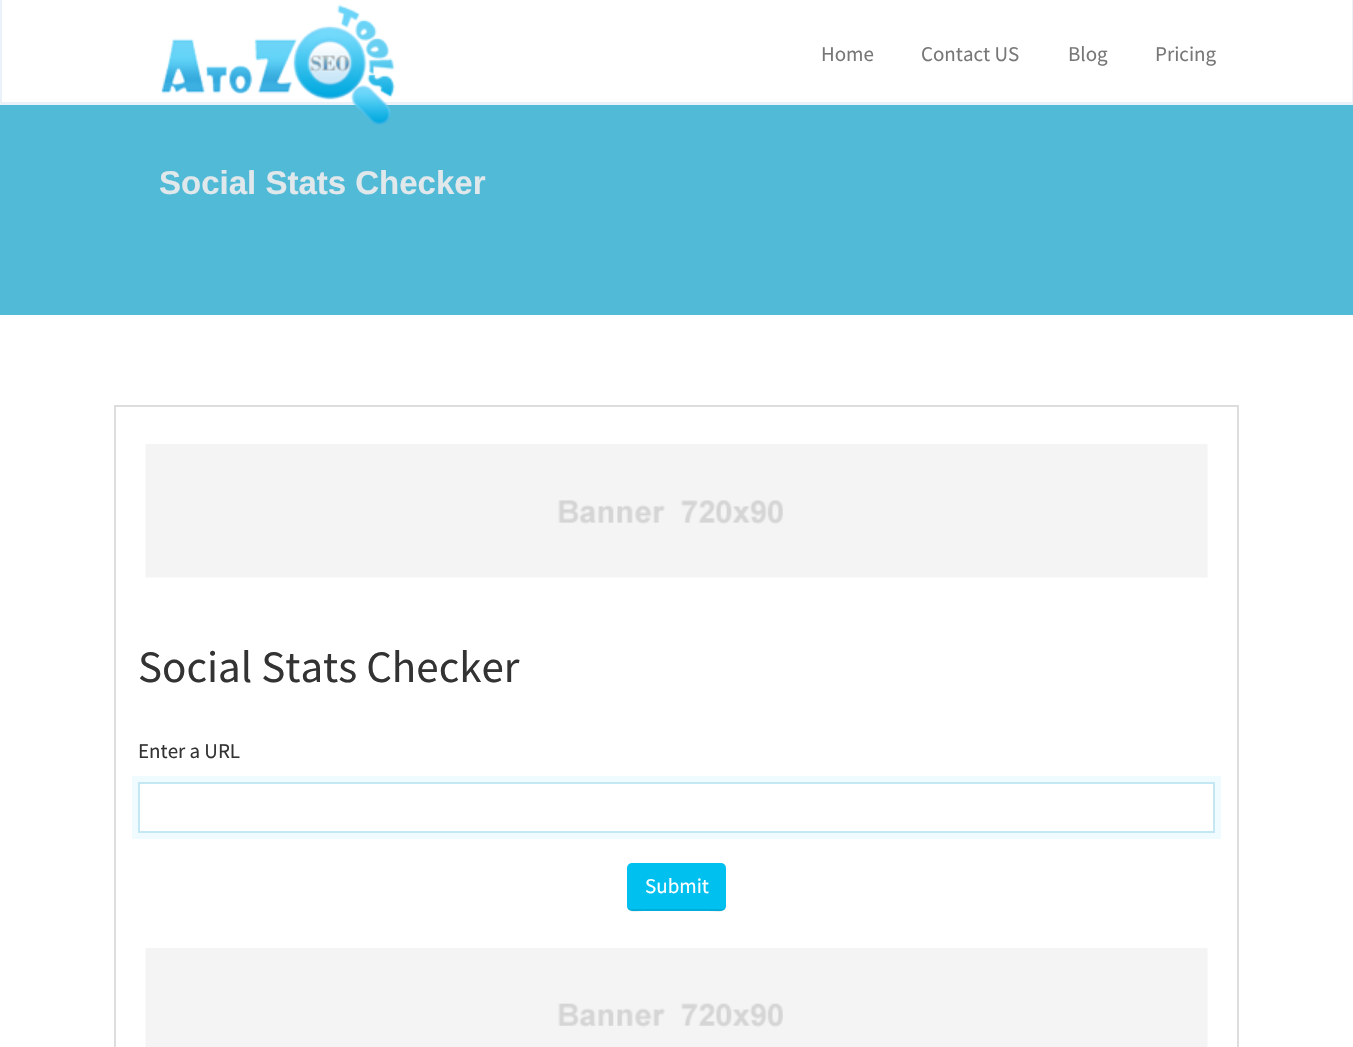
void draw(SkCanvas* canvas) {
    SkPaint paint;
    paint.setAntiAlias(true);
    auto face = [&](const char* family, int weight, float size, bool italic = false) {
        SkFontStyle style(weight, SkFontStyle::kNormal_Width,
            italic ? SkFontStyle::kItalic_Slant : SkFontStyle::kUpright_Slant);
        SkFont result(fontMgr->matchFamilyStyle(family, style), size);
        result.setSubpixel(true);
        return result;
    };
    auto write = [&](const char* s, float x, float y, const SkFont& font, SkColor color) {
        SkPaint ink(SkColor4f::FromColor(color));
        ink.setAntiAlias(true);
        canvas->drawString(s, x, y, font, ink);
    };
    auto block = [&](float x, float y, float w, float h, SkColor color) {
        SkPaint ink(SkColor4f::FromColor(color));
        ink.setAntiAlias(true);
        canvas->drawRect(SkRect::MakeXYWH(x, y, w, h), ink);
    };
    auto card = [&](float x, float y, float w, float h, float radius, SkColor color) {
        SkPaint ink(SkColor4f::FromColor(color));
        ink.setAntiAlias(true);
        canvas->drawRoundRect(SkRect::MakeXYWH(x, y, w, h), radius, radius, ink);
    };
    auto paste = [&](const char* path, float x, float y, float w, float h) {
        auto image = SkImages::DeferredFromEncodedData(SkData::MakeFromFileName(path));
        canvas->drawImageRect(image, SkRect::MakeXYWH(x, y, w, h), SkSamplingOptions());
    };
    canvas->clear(SK_ColorWHITE);
    block(1352, 0, 1, 105, SkColorSetRGB(235, 241, 248));
    block(0, 102, 1353, 3, SkColorSetRGB(235, 241, 248));
    block(0, 0, 2, 105, SkColorSetRGB(235, 241, 248));
    block(0, 105, 1353, 210, SkColorSetRGB(81, 186, 214));
    paste("pic1.png", 161, 4, 234, 121);
    auto kFont1 = face("Source Sans Pro", 400, 21);
    write("Home", 821, 61, kFont1, SkColorSetRGB(119, 119, 119));
    write("Contact US", 921, 61, kFont1, SkColorSetRGB(119, 119, 119));
    write("Blog", 1068, 61, kFont1, SkColorSetRGB(119, 119, 119));
    write("Pricing", 1155, 61, kFont1, SkColorSetRGB(119, 119, 119));
    auto kFont2 = face("Liberation Sans", 700, 33);
    write("Social Stats Checker", 159, 194, kFont2, SkColorSetRGB(224, 232, 235));
    paint.setStyle(SkPaint::kStroke_Style);
    paint.setStrokeWidth(2);
    paint.setColor(SkColorSetRGB(221, 221, 221));
    canvas->drawRect(SkRect::MakeXYWH(115, 406, 1123, 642), paint);
    paste("pic2.png", 145, 444, 1063, 134);
    auto kFont3 = face("Source Sans Pro", 400, 45);
    write("Social Stats Checker", 138, 682, kFont3, SkColorSetRGB(51, 51, 51));
    write("Enter a URL", 138, 758, kFont1, SkColorSetRGB(51, 51, 51));
    paint.setStrokeWidth(6);
    paint.setColor(SkColorSetRGB(240, 251, 255));
    canvas->drawRect(SkRect::MakeXYWH(135, 779, 1083, 57), paint);
    paint.setStrokeWidth(2);
    paint.setColor(SkColorSetRGB(195, 232, 244));
    canvas->drawRect(SkRect::MakeXYWH(139, 783, 1075, 49), paint);
    card(627, 863, 99, 48, 5, SkColorSetRGB(0, 192, 239));
    paint.setStyle(SkPaint::kFill_Style);
    paint.setColor(SkColorSetARGB(23, 0, 0, 0));
    canvas->drawPath(SkPathBuilder().moveTo(627, 904).cubicTo(627, 915, 638, 911, 647, 911).lineTo(706, 911).cubicTo(715, 911, 726, 915, 726, 904).cubicTo(726, 907, 724, 909, 722, 909).lineTo(632, 909).cubicTo(629, 909, 627, 907, 627, 904).close().detach(), paint);
    write("Submit", 645, 893, kFont1, SK_ColorWHITE);
    paste("pic3.png", 145, 948, 1063, 99);
}
